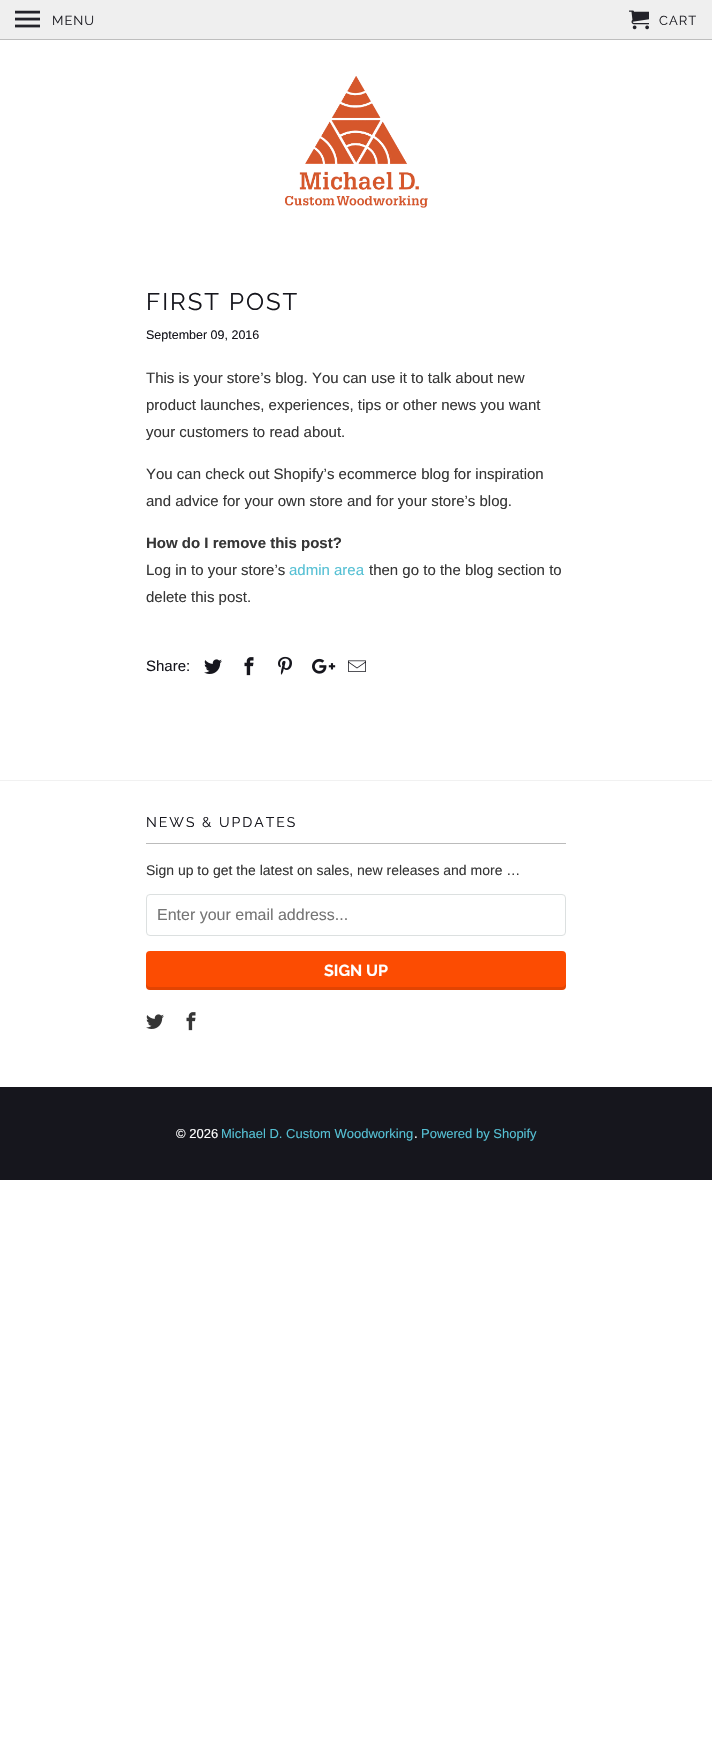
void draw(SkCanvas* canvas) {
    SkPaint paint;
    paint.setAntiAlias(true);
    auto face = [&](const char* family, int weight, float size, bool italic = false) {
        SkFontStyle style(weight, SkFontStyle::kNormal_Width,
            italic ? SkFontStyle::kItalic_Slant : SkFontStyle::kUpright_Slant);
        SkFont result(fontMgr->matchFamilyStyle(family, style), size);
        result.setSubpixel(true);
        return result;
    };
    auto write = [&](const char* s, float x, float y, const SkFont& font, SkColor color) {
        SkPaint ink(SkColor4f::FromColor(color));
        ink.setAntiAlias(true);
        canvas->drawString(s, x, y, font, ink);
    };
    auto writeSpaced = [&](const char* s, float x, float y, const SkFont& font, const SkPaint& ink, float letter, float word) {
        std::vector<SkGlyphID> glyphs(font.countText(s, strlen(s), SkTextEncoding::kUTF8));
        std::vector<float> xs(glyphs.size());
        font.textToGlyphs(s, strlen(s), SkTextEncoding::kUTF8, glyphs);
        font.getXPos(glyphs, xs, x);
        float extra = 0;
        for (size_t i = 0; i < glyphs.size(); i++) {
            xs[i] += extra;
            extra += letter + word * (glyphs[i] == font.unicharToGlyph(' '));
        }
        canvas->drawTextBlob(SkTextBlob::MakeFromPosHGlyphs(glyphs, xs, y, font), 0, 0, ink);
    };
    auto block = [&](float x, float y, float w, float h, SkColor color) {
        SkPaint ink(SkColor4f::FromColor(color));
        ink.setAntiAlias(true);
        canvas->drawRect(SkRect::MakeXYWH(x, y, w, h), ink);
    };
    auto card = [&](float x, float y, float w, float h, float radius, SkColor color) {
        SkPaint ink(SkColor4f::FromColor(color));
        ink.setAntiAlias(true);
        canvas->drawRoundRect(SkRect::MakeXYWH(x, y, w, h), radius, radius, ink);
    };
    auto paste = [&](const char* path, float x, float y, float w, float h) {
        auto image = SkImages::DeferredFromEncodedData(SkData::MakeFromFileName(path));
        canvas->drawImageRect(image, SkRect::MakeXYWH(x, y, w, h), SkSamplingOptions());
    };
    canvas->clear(SK_ColorWHITE);
    block(0, 0, 712, 39, SkColorSetRGB(239, 239, 239));
    block(0, 39, 712, 1, SkColorSetRGB(190, 190, 190));
    paste("pic1.png", 15, 10, 25, 18);
    auto kFont1 = face("Raleway", 400, 13);
    paint.setColor(SkColorSetRGB(34, 34, 40));
    writeSpaced("MENU", 52, 25, kFont1, paint, 1, 0);
    paste("pic2.png", 629, 10, 20, 20);
    writeSpaced("CART", 659, 25, kFont1, paint, 1, 0);
    paste("pic3.png", 285, 76, 143, 132);
    auto kFont2 = face("Raleway", 400, 24);
    paint.setColor(SkColorSetRGB(22, 22, 29));
    writeSpaced("FIRST POST", 146, 310, kFont2, paint, 2, 0);
    auto kFont3 = face("Liberation Sans", 400, 12.5f);
    write("September 09, 2016", 146, 339, kFont3, SkColorSetRGB(22, 22, 29));
    auto kFont4 = face("Liberation Sans", 400, 15);
    write("This is your store’s blog. You can use it to talk about new", 146, 383, kFont4, SkColorSetRGB(54, 54, 54));
    write("product launches, experiences, tips or other news you want", 146, 410, kFont4, SkColorSetRGB(54, 54, 54));
    write("your customers to read about.", 146, 437, kFont4, SkColorSetRGB(54, 54, 54));
    write("You can check out Shopify’s ecommerce blog for inspiration", 146, 479, kFont4, SkColorSetRGB(54, 54, 54));
    write("and advice for your own store and for your store’s blog.", 146, 506, kFont4, SkColorSetRGB(54, 54, 54));
    auto kFont5 = face("Liberation Sans", 700, 15);
    write("How do I remove this post?", 146, 548, kFont5, SkColorSetRGB(54, 54, 54));
    write("Log in to your store’s", 146, 575, kFont4, SkColorSetRGB(54, 54, 54));
    write("admin area", 289, 575, kFont4, SkColorSetRGB(85, 192, 212));
    write("then go to the blog section to", 369, 575, kFont4, SkColorSetRGB(54, 54, 54));
    write("delete this post.", 146, 602, kFont4, SkColorSetRGB(54, 54, 54));
    write("Share:", 146, 671, kFont4, SkColorSetRGB(22, 22, 29));
    paste("pic4.png", 204, 659, 18, 15);
    paste("pic5.png", 244, 657, 10, 19);
    paste("pic6.png", 278, 656, 14, 19);
    paste("pic7.png", 312, 658, 24, 16);
    paste("pic8.png", 348, 660, 18, 12);
    block(0, 780, 712, 1, SkColorSetRGB(241, 241, 241));
    block(146, 843, 420, 1, SkColorSetRGB(187, 187, 187));
    auto kFont6 = face("Raleway", 400, 14);
    writeSpaced("NEWS & UPDATES", 146, 827, kFont6, paint, 2, 0);
    auto kFont7 = face("Liberation Sans", 400, 14);
    write("Sign up to get the latest on sales, new releases and more …", 146, 875, kFont7, SkColorSetRGB(54, 54, 54));
    paint.setStyle(SkPaint::kStroke_Style);
    paint.setStrokeWidth(1);
    paint.setColor(SkColorSetRGB(220, 224, 224));
    canvas->drawRoundRect(SkRect::MakeXYWH(146.5f, 894.5f, 419, 41), 3.5f, 3.5f, paint);
    auto kFont8 = face("Liberation Sans", 400, 16);
    write("Enter your email address...", 157, 920, kFont8, SkColorSetRGB(117, 117, 117));
    card(146, 951, 420, 39, 4, SkColorSetRGB(252, 76, 2));
    paint.setStyle(SkPaint::kFill_Style);
    paint.setColor(SkColorSetARGB(26, 0, 0, 0));
    canvas->drawPath(SkPathBuilder().moveTo(146, 983).lineTo(146, 986).cubicTo(146, 988, 148, 990, 150, 990).lineTo(562, 990).cubicTo(564, 990, 566, 988, 566, 986).lineTo(566, 983).cubicTo(566, 985, 564, 987, 562, 987).lineTo(150, 987).cubicTo(148, 987, 146, 985, 146, 983).close().detach(), paint);
    auto kFont9 = face("Raleway", 700, 16);
    write("SIGN UP", 324, 976, kFont9, SK_ColorWHITE);
    paste("pic9.png", 146, 1014, 18, 15);
    paste("pic10.png", 186, 1012, 10, 19);
    block(0, 1087, 712, 93, SkColorSetRGB(22, 22, 29));
    auto kFont10 = face("Liberation Sans", 400, 13);
    write("© 2026", 176, 1138, kFont10, SK_ColorWHITE);
    write("Michael D. Custom Woodworking", 221, 1138, kFont10, SkColorSetRGB(85, 192, 212));
    write(".", 414, 1138, kFont10, SK_ColorWHITE);
    write("Powered by Shopify", 421, 1138, kFont10, SkColorSetRGB(85, 192, 212));
}
